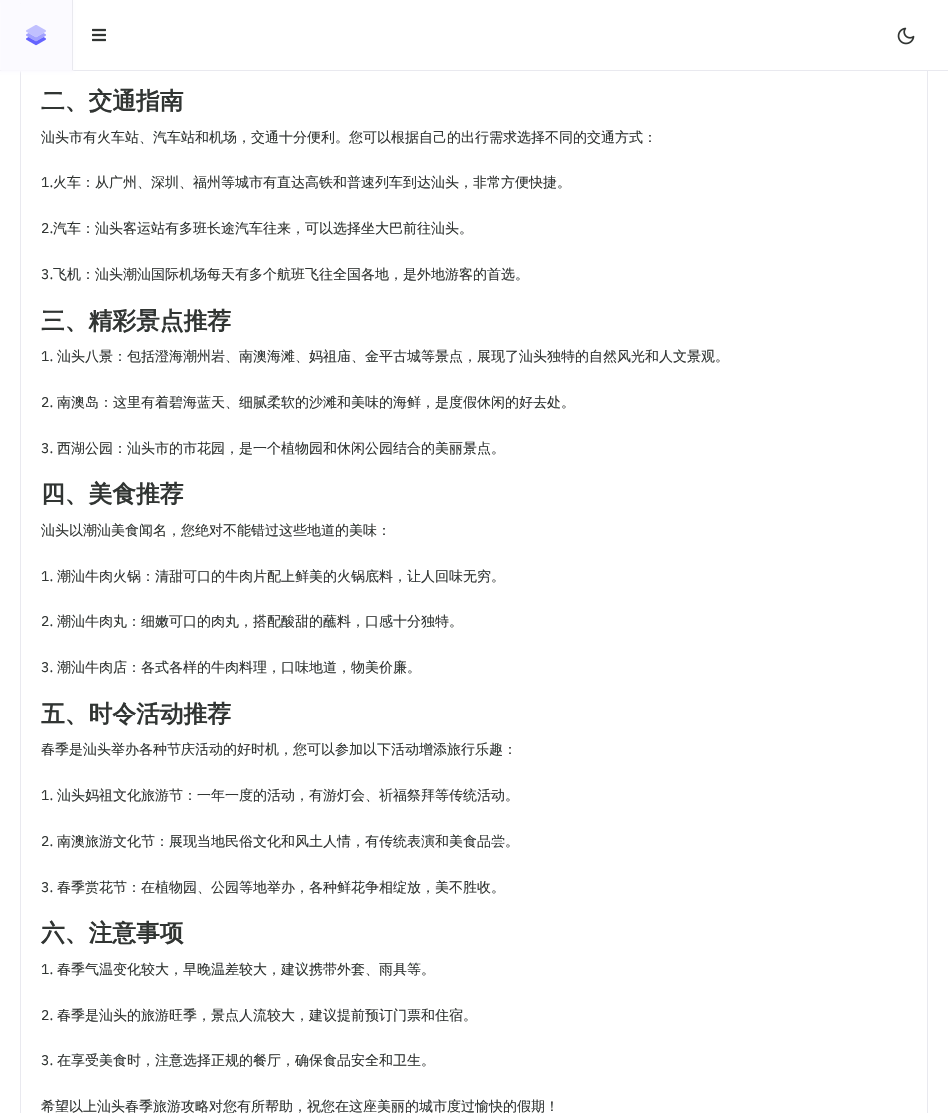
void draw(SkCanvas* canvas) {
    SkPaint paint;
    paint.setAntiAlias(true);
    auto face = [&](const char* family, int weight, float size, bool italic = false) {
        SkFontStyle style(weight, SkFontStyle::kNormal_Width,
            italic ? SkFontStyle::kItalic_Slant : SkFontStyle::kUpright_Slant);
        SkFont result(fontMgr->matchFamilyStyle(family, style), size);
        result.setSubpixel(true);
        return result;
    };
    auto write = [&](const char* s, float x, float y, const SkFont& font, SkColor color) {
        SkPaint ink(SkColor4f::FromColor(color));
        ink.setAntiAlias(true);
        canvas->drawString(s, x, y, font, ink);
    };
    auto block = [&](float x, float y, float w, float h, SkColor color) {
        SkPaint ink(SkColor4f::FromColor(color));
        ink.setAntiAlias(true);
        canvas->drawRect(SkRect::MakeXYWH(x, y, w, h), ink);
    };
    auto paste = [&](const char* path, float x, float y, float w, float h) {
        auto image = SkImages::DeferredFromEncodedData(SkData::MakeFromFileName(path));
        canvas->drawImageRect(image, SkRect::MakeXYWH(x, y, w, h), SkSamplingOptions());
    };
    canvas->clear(SK_ColorWHITE);
    paint.setStyle(SkPaint::kStroke_Style);
    paint.setStrokeWidth(1);
    paint.setColor(SkColorSetRGB(233, 233, 239));
    canvas->drawRect(SkRect::MakeXYWH(20.5f, -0.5f, 907, 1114), paint);
    block(927, 0, 1, 70, SK_ColorWHITE);
    block(0, 70, 948, 1, SkColorSetRGB(233, 233, 239));
    paint.setStyle(SkPaint::kFill_Style);
    paint.setColor(SkColorSetRGB(251, 250, 255));
    paint.setMaskFilter(SkMaskFilter::MakeBlur(kNormal_SkBlurStyle, 1));
    canvas->drawRect(SkRect::MakeXYWH(0, 2, 73, 70), paint);
    paint.setMaskFilter(nullptr);
    block(0, 0, 72, 3, SkColorSetRGB(251, 250, 255));
    block(72, 0, 1, 70, SkColorSetRGB(233, 233, 239));
    paste("pic1.png", 26, 25, 20, 21);
    paste("pic2.png", 92, 28, 14, 14);
    paste("pic3.png", 897, 27, 18, 18);
    auto kFont1 = face("WenQuanYi Zen Hei", 700, 23.75f);
    write("二、交通指南", 41, 109, kFont1, SkColorSetRGB(49, 53, 51));
    auto kFont2 = face("WenQuanYi Zen Hei", 500, 14);
    write("汕头市有火车站、汽车站和机场，交通十分便利。您可以根据自己的出行需求选择不同的交通方式：", 41, 142, kFont2, SkColorSetRGB(49, 53, 51));
    auto kFont3 = face("IBM Plex Sans", 400, 14);
    write("1.", 41, 187, kFont3, SkColorSetRGB(49, 53, 51));
    write("火车：从广州、深圳、福州等城市有直达高铁和普速列车到达汕头，非常方便快捷。", 53, 187, kFont2, SkColorSetRGB(49, 53, 51));
    write("2.", 41, 233, kFont3, SkColorSetRGB(49, 53, 51));
    write("汽车：汕头客运站有多班长途汽车往来，可以选择坐大巴前往汕头。", 53, 233, kFont2, SkColorSetRGB(49, 53, 51));
    write("3.", 41, 279, kFont3, SkColorSetRGB(49, 53, 51));
    write("飞机：汕头潮汕国际机场每天有多个航班飞往全国各地，是外地游客的首选。", 53, 279, kFont2, SkColorSetRGB(49, 53, 51));
    write("三、精彩景点推荐", 41, 329, kFont1, SkColorSetRGB(49, 53, 51));
    write("1.", 41, 361, kFont3, SkColorSetRGB(49, 53, 51));
    write("汕头八景：包括澄海潮州岩、南澳海滩、妈祖庙、金平古城等景点，展现了汕头独特的自然风光和人文景观。", 57, 361, kFont2, SkColorSetRGB(49, 53, 51));
    write("2.", 41, 407, kFont3, SkColorSetRGB(49, 53, 51));
    write("南澳岛：这里有着碧海蓝天、细腻柔软的沙滩和美味的海鲜，是度假休闲的好去处。", 57, 407, kFont2, SkColorSetRGB(49, 53, 51));
    write("3.", 41, 453, kFont3, SkColorSetRGB(49, 53, 51));
    write("西湖公园：汕头市的市花园，是一个植物园和休闲公园结合的美丽景点。", 57, 453, kFont2, SkColorSetRGB(49, 53, 51));
    write("四、美食推荐", 41, 502, kFont1, SkColorSetRGB(49, 53, 51));
    write("汕头以潮汕美食闻名，您绝对不能错过这些地道的美味：", 41, 535, kFont2, SkColorSetRGB(49, 53, 51));
    write("1.", 41, 581, kFont3, SkColorSetRGB(49, 53, 51));
    write("潮汕牛肉火锅：清甜可口的牛肉片配上鲜美的火锅底料，让人回味无穷。", 57, 581, kFont2, SkColorSetRGB(49, 53, 51));
    write("2.", 41, 626, kFont3, SkColorSetRGB(49, 53, 51));
    write("潮汕牛肉丸：细嫩可口的肉丸，搭配酸甜的蘸料，口感十分独特。", 57, 626, kFont2, SkColorSetRGB(49, 53, 51));
    write("3.", 41, 672, kFont3, SkColorSetRGB(49, 53, 51));
    write("潮汕牛肉店：各式各样的牛肉料理，口味地道，物美价廉。", 57, 672, kFont2, SkColorSetRGB(49, 53, 51));
    write("五、时令活动推荐", 41, 722, kFont1, SkColorSetRGB(49, 53, 51));
    write("春季是汕头举办各种节庆活动的好时机，您可以参加以下活动增添旅行乐趣：", 41, 754, kFont2, SkColorSetRGB(49, 53, 51));
    write("1.", 41, 800, kFont3, SkColorSetRGB(49, 53, 51));
    write("汕头妈祖文化旅游节：一年一度的活动，有游灯会、祈福祭拜等传统活动。", 57, 800, kFont2, SkColorSetRGB(49, 53, 51));
    write("2.", 41, 846, kFont3, SkColorSetRGB(49, 53, 51));
    write("南澳旅游文化节：展现当地民俗文化和风土人情，有传统表演和美食品尝。", 57, 846, kFont2, SkColorSetRGB(49, 53, 51));
    write("3.", 41, 892, kFont3, SkColorSetRGB(49, 53, 51));
    write("春季赏花节：在植物园、公园等地举办，各种鲜花争相绽放，美不胜收。", 57, 892, kFont2, SkColorSetRGB(49, 53, 51));
    write("六、注意事项", 41, 941, kFont1, SkColorSetRGB(49, 53, 51));
    write("1.", 41, 974, kFont3, SkColorSetRGB(49, 53, 51));
    write("春季气温变化较大，早晚温差较大，建议携带外套、雨具等。", 57, 974, kFont2, SkColorSetRGB(49, 53, 51));
    write("2.", 41, 1020, kFont3, SkColorSetRGB(49, 53, 51));
    write("春季是汕头的旅游旺季，景点人流较大，建议提前预订门票和住宿。", 57, 1020, kFont2, SkColorSetRGB(49, 53, 51));
    write("3.", 41, 1065, kFont3, SkColorSetRGB(49, 53, 51));
    write("在享受美食时，注意选择正规的餐厅，确保食品安全和卫生。", 57, 1065, kFont2, SkColorSetRGB(49, 53, 51));
    write("希望以上汕头春季旅游攻略对您有所帮助，祝您在这座美丽的城市度过愉快的假期！", 41, 1111, kFont2, SkColorSetRGB(49, 53, 51));
}
